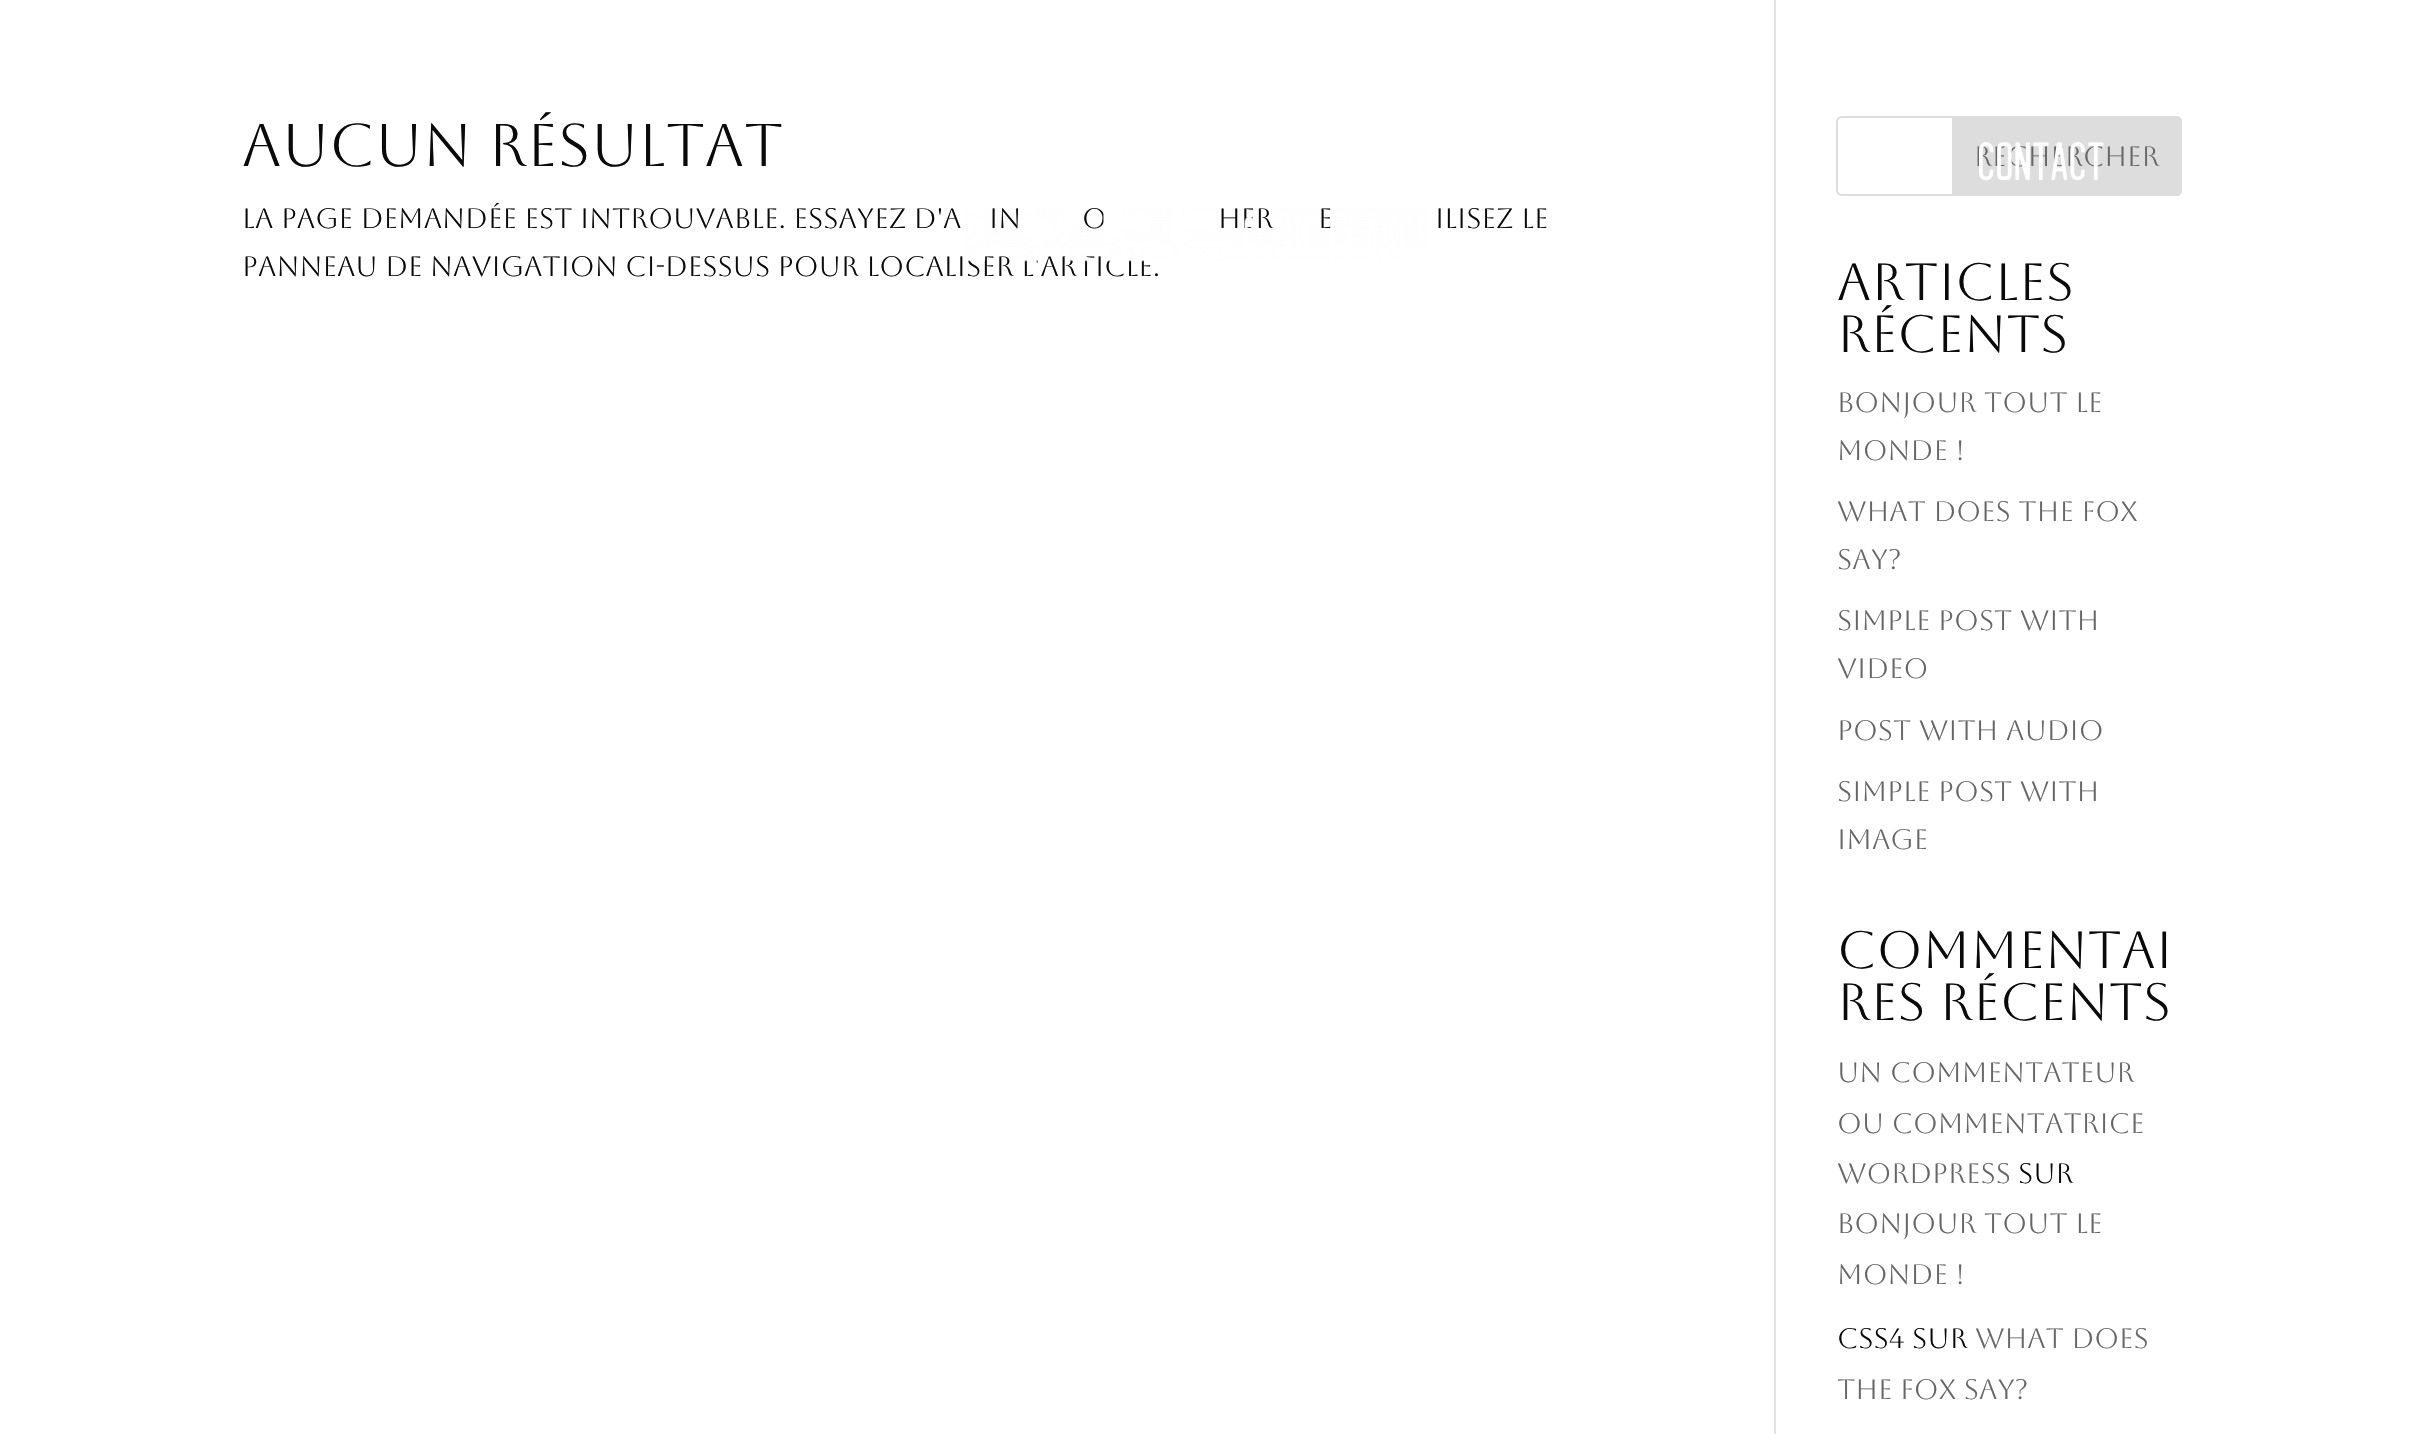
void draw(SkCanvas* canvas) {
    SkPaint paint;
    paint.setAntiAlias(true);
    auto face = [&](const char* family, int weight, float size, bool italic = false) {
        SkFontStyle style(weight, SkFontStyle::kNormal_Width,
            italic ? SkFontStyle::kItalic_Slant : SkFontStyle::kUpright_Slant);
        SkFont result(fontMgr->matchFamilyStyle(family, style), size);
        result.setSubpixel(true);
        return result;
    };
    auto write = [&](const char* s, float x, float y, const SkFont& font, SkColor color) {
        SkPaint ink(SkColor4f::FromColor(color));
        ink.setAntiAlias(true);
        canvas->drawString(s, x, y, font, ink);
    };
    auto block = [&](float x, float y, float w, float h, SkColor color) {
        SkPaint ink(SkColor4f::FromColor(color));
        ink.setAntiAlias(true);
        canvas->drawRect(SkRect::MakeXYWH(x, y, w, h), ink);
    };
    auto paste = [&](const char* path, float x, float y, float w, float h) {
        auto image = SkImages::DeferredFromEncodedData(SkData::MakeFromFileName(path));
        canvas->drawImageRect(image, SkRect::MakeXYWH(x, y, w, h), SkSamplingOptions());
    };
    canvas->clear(SK_ColorWHITE);
    block(1774, 0, 2, 1434, SkColorSetRGB(226, 226, 226));
    auto kFont1 = face("Aboreto", 400, 60);
    write("Aucun résultat", 242, 166, kFont1, SkColorSetRGB(10, 10, 10));
    auto kFont2 = face("Aboreto", 400, 28);
    write("La page demandée est introuvable. Essayez d'a", 242, 228, kFont2, SkColorSetRGB(10, 10, 10));
    write("in", 989, 228, kFont2, SkColorSetRGB(10, 10, 10));
    write("o", 1082, 228, kFont2, SkColorSetRGB(10, 10, 10));
    write("her", 1218, 228, kFont2, SkColorSetRGB(10, 10, 10));
    write("e", 1318, 228, kFont2, SkColorSetRGB(10, 10, 10));
    write("ilisez le", 1435, 228, kFont2, SkColorSetRGB(10, 10, 10));
    write("panneau de navigation ci-dessus pour localiser l'article.", 242, 276, kFont2, SkColorSetRGB(10, 10, 10));
    paint.setStyle(SkPaint::kStroke_Style);
    paint.setStrokeWidth(2);
    paint.setColor(SkColorSetRGB(221, 221, 221));
    canvas->drawRoundRect(SkRect::MakeXYWH(1837, 117, 344, 78), 5, 5, paint);
    paint.setStyle(SkPaint::kFill_Style);
    canvas->drawPath(SkPathBuilder().moveTo(1953, 117).lineTo(2176, 117).cubicTo(2179, 117, 2181, 119, 2181, 122).lineTo(2181, 190).cubicTo(2181, 193, 2179, 195, 2176, 195).lineTo(1953, 195).close().detach(), paint);
    paint.setStyle(SkPaint::kStroke_Style);
    canvas->drawPath(SkPathBuilder().moveTo(1953, 117).lineTo(2176, 117).cubicTo(2179, 117, 2181, 119, 2181, 122).lineTo(2181, 190).cubicTo(2181, 193, 2179, 195, 2176, 195).lineTo(1953, 195).close().detach(), paint);
    write("Rechercher", 1974, 166, kFont2, SkColorSetRGB(102, 102, 102));
    auto kFont3 = face("Aboreto", 400, 52);
    write("Articles", 1837, 300, kFont3, SkColorSetRGB(10, 10, 10));
    write("récents", 1837, 352, kFont3, SkColorSetRGB(10, 10, 10));
    write("Bonjour tout le", 1837, 412, kFont2, SkColorSetRGB(102, 102, 102));
    write("monde !", 1837, 460, kFont2, SkColorSetRGB(102, 102, 102));
    write("What does the fox", 1837, 521, kFont2, SkColorSetRGB(102, 102, 102));
    write("say?", 1837, 569, kFont2, SkColorSetRGB(102, 102, 102));
    write("Simple Post With", 1837, 630, kFont2, SkColorSetRGB(102, 102, 102));
    write("Video", 1837, 678, kFont2, SkColorSetRGB(102, 102, 102));
    write("Post With Audio", 1837, 740, kFont2, SkColorSetRGB(102, 102, 102));
    write("Simple Post With", 1837, 801, kFont2, SkColorSetRGB(102, 102, 102));
    write("Image", 1837, 849, kFont2, SkColorSetRGB(102, 102, 102));
    write("Commentai", 1837, 968, kFont3, SkColorSetRGB(10, 10, 10));
    write("res récents", 1837, 1020, kFont3, SkColorSetRGB(10, 10, 10));
    write("Un commentateur", 1837, 1082, kFont2, SkColorSetRGB(102, 102, 102));
    write("ou commentatrice", 1837, 1133, kFont2, SkColorSetRGB(102, 102, 102));
    write("WordPress", 1837, 1183, kFont2, SkColorSetRGB(102, 102, 102));
    write("sur", 2018, 1183, kFont2, SkColorSetRGB(10, 10, 10));
    write("Bonjour tout le", 1837, 1233, kFont2, SkColorSetRGB(102, 102, 102));
    write("monde !", 1837, 1284, kFont2, SkColorSetRGB(102, 102, 102));
    write("css4 sur", 1837, 1348, kFont2, SkColorSetRGB(10, 10, 10));
    write("What does", 1975, 1348, kFont2, SkColorSetRGB(102, 102, 102));
    write("the fox say?", 1837, 1399, kFont2, SkColorSetRGB(102, 102, 102));
    auto kFont4 = face("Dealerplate", 400, 48);
    write("Contact", 1977, 180, kFont4, SK_ColorWHITE);
    paste("pic1.png", 966, 208, 461, 54);
}
